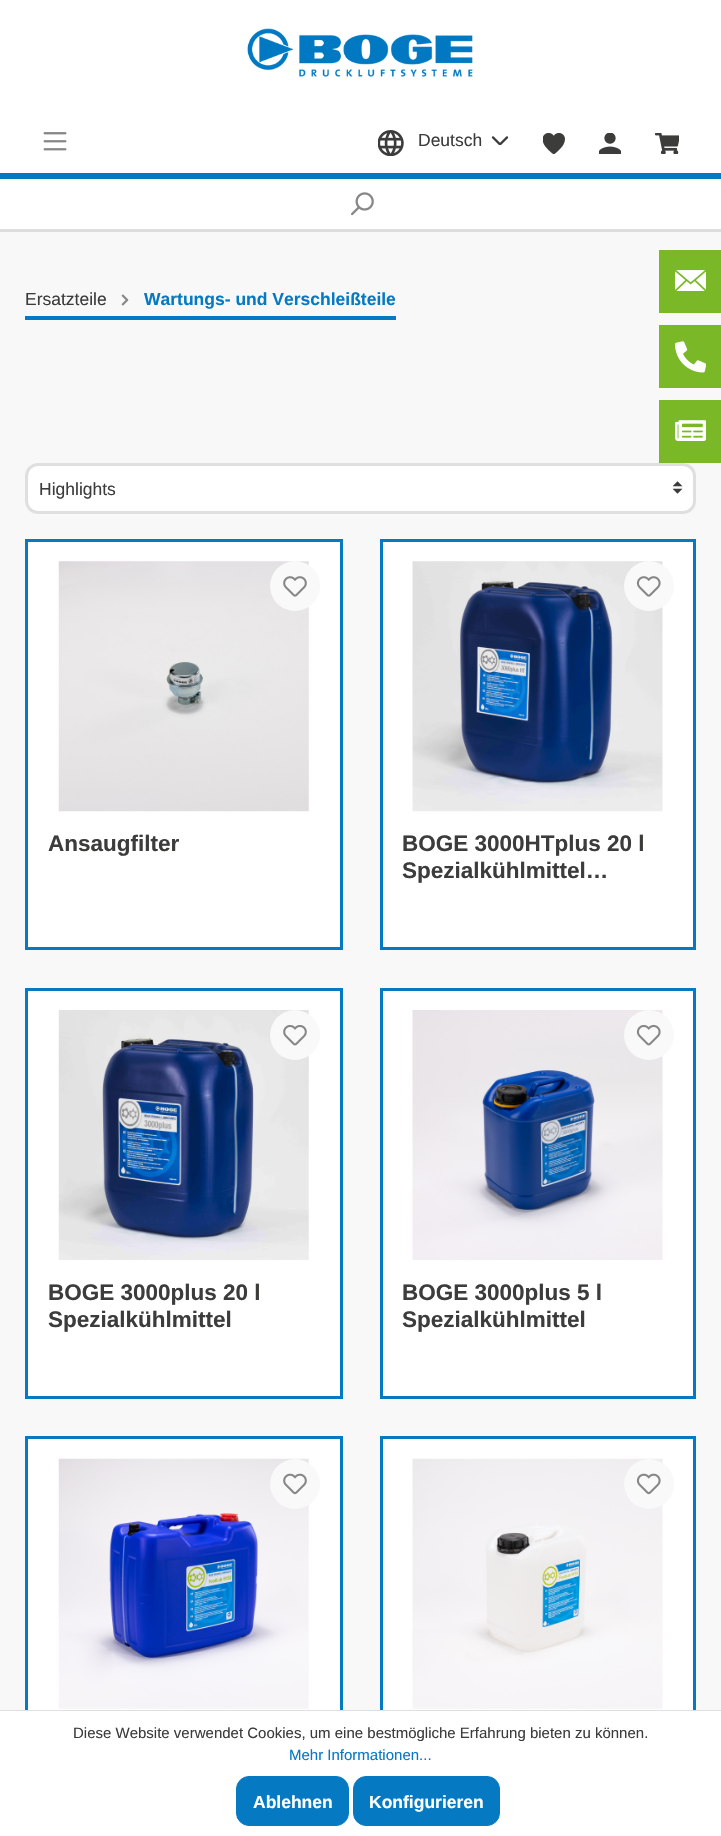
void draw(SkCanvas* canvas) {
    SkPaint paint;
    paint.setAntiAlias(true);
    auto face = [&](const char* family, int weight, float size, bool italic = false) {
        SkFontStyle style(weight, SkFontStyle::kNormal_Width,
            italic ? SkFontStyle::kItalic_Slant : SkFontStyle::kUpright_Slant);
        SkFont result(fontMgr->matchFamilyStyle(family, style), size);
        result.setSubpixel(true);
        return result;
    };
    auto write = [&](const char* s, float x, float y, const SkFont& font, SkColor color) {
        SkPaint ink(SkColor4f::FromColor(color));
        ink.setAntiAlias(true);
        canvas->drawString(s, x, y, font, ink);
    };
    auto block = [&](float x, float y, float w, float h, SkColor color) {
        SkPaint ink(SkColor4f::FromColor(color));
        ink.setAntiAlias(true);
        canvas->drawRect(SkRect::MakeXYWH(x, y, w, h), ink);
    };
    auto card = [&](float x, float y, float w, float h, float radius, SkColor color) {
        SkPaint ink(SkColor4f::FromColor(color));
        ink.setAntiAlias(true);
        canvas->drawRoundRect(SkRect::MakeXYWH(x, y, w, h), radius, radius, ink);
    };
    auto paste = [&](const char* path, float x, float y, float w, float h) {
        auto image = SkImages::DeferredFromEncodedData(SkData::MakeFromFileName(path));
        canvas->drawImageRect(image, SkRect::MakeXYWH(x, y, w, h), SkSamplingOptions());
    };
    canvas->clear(SkColorSetRGB(248, 248, 248));
    block(0, 0, 721, 173, SK_ColorWHITE);
    block(0, 173, 721, 6, SkColorSetRGB(6, 121, 195));
    paste("pic1.png", 247, 28, 226, 49);
    paste("pic2.png", 43, 132, 24, 19);
    paste("pic3.png", 378, 130, 26, 26);
    auto kFont1 = face("Liberation Sans", 400, 17.5f);
    write("Deutsch", 418, 146, kFont1, SkColorSetRGB(60, 60, 59));
    paste("pic4.png", 491, 136, 18, 9);
    paste("pic5.png", 543, 133, 22, 21);
    paste("pic6.png", 599, 133, 22, 21);
    paste("pic7.png", 655, 133, 24, 21);
    block(0, 179, 721, 50, SK_ColorWHITE);
    block(0, 229, 721, 3, SkColorSetRGB(220, 221, 222));
    paste("pic8.png", 351, 192, 23, 24);
    block(25, 316, 371, 4, SkColorSetRGB(6, 121, 195));
    write("Ersatzteile", 25, 305, kFont1, SkColorSetRGB(60, 60, 59));
    paste("pic9.png", 121, 294, 8, 12);
    auto kFont2 = face("Liberation Sans", 700, 17.5f);
    write("Wartungs- und Verschleißteile", 144, 305, kFont2, SkColorSetRGB(6, 121, 195));
    card(25, 463, 671, 51, 13, SK_ColorWHITE);
    paste("pic10.png", 673, 481, 10, 13);
    paint.setStyle(SkPaint::kStroke_Style);
    paint.setStrokeWidth(3);
    paint.setColor(SkColorSetRGB(223, 223, 223));
    canvas->drawRoundRect(SkRect::MakeXYWH(26.5f, 464.5f, 668, 48), 11.5f, 11.5f, paint);
    write("Highlights", 39, 495, kFont1, SkColorSetRGB(60, 60, 59));
    paint.setStyle(SkPaint::kFill_Style);
    paint.setColor(SK_ColorWHITE);
    canvas->drawRect(SkRect::MakeXYWH(26.5f, 540.5f, 315, 408), paint);
    paint.setStyle(SkPaint::kStroke_Style);
    paint.setColor(SkColorSetRGB(6, 121, 195));
    canvas->drawRect(SkRect::MakeXYWH(26.5f, 540.5f, 315, 408), paint);
    paste("pic11.png", 58, 561, 251, 251);
    paint.setStyle(SkPaint::kFill_Style);
    paint.setColor(SkColorSetRGB(249, 249, 249));
    canvas->drawCircle(295, 586, 25, paint);
    paste("pic12.png", 283, 576, 24, 21);
    auto kFont3 = face("Liberation Sans", 700, 22.5f);
    write("Ansaugfilter", 48, 851, kFont3, SkColorSetRGB(60, 60, 59));
    paint.setColor(SK_ColorWHITE);
    canvas->drawRect(SkRect::MakeXYWH(381.5f, 540.5f, 313, 408), paint);
    paint.setStyle(SkPaint::kStroke_Style);
    paint.setColor(SkColorSetRGB(6, 121, 195));
    canvas->drawRect(SkRect::MakeXYWH(381.5f, 540.5f, 313, 408), paint);
    paste("pic13.png", 412, 561, 251, 251);
    paint.setStyle(SkPaint::kFill_Style);
    paint.setColor(SkColorSetRGB(249, 249, 249));
    canvas->drawCircle(649, 586, 25, paint);
    paste("pic14.png", 636, 576, 25, 21);
    write("BOGE 3000HTplus 20 l", 402, 851, kFont3, SkColorSetRGB(60, 60, 59));
    write("Spezialkühlmittel…", 402, 878, kFont3, SkColorSetRGB(60, 60, 59));
    paint.setColor(SK_ColorWHITE);
    canvas->drawRect(SkRect::MakeXYWH(26.5f, 989.5f, 315, 408), paint);
    paint.setStyle(SkPaint::kStroke_Style);
    paint.setColor(SkColorSetRGB(6, 121, 195));
    canvas->drawRect(SkRect::MakeXYWH(26.5f, 989.5f, 315, 408), paint);
    paste("pic15.png", 58, 1010, 251, 250);
    paint.setStyle(SkPaint::kFill_Style);
    paint.setColor(SkColorSetRGB(249, 249, 249));
    canvas->drawCircle(295, 1035, 25, paint);
    paste("pic16.png", 283, 1025, 24, 21);
    write("BOGE 3000plus 20 l", 48, 1300, kFont3, SkColorSetRGB(60, 60, 59));
    write("Spezialkühlmittel", 48, 1327, kFont3, SkColorSetRGB(60, 60, 59));
    paint.setColor(SK_ColorWHITE);
    canvas->drawRect(SkRect::MakeXYWH(381.5f, 989.5f, 313, 408), paint);
    paint.setStyle(SkPaint::kStroke_Style);
    paint.setColor(SkColorSetRGB(6, 121, 195));
    canvas->drawRect(SkRect::MakeXYWH(381.5f, 989.5f, 313, 408), paint);
    paste("pic17.png", 412, 1010, 251, 250);
    paint.setStyle(SkPaint::kFill_Style);
    paint.setColor(SkColorSetRGB(249, 249, 249));
    canvas->drawCircle(649, 1035, 25, paint);
    paste("pic18.png", 636, 1024, 25, 22);
    write("BOGE 3000plus 5 l", 402, 1300, kFont3, SkColorSetRGB(60, 60, 59));
    write("Spezialkühlmittel", 402, 1327, kFont3, SkColorSetRGB(60, 60, 59));
    block(28, 1439, 312, 271, SK_ColorWHITE);
    paint.setStyle(SkPaint::kStroke_Style);
    paint.setColor(SkColorSetRGB(6, 121, 195));
    canvas->drawRect(SkRect::MakeXYWH(26.5f, 1437.5f, 315, 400), paint);
    paste("pic19.png", 58, 1458, 251, 251);
    paint.setStyle(SkPaint::kFill_Style);
    paint.setColor(SkColorSetRGB(249, 249, 249));
    canvas->drawCircle(295, 1484, 25, paint);
    paste("pic20.png", 283, 1473, 24, 22);
    block(383, 1439, 310, 271, SK_ColorWHITE);
    paint.setStyle(SkPaint::kStroke_Style);
    paint.setColor(SkColorSetRGB(6, 121, 195));
    canvas->drawRect(SkRect::MakeXYWH(381.5f, 1437.5f, 313, 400), paint);
    paste("pic21.png", 412, 1458, 251, 251);
    paint.setStyle(SkPaint::kFill_Style);
    paint.setColor(SkColorSetRGB(249, 249, 249));
    canvas->drawCircle(649, 1484, 25, paint);
    paste("pic22.png", 636, 1473, 25, 22);
    block(659, 250, 62, 63, SkColorSetRGB(122, 184, 40));
    paste("pic23.png", 675, 270, 31, 21);
    block(659, 325, 62, 63, SkColorSetRGB(122, 184, 40));
    paste("pic24.png", 675, 341, 31, 32);
    block(659, 400, 62, 63, SkColorSetRGB(122, 184, 40));
    paste("pic25.png", 675, 420, 31, 21);
    block(0, 1711, 721, 125, SK_ColorWHITE);
    block(0, 1710, 721, 1, SkColorSetRGB(223, 223, 223));
    auto kFont4 = face("Liberation Sans", 400, 15);
    write("Diese Website verwendet Cookies, um eine bestmögliche Erfahrung bieten zu können.", 73, 1738, kFont4, SkColorSetRGB(60, 60, 59));
    write("Mehr Informationen...", 289, 1760, kFont4, SkColorSetRGB(6, 121, 195));
    paint.setColor(SkColorSetRGB(6, 121, 195));
    canvas->drawRoundRect(SkRect::MakeXYWH(236.5f, 1776.5f, 112, 49), 12.5f, 12.5f, paint);
    paint.setStyle(SkPaint::kStroke_Style);
    paint.setStrokeWidth(1);
    canvas->drawRoundRect(SkRect::MakeXYWH(236.5f, 1776.5f, 112, 49), 12.5f, 12.5f, paint);
    write("Ablehnen", 253, 1808, kFont2, SK_ColorWHITE);
    paint.setStyle(SkPaint::kFill_Style);
    canvas->drawRoundRect(SkRect::MakeXYWH(353.5f, 1776.5f, 146, 49), 12.5f, 12.5f, paint);
    paint.setStyle(SkPaint::kStroke_Style);
    canvas->drawRoundRect(SkRect::MakeXYWH(353.5f, 1776.5f, 146, 49), 12.5f, 12.5f, paint);
    write("Konfigurieren", 369, 1808, kFont2, SK_ColorWHITE);
}
